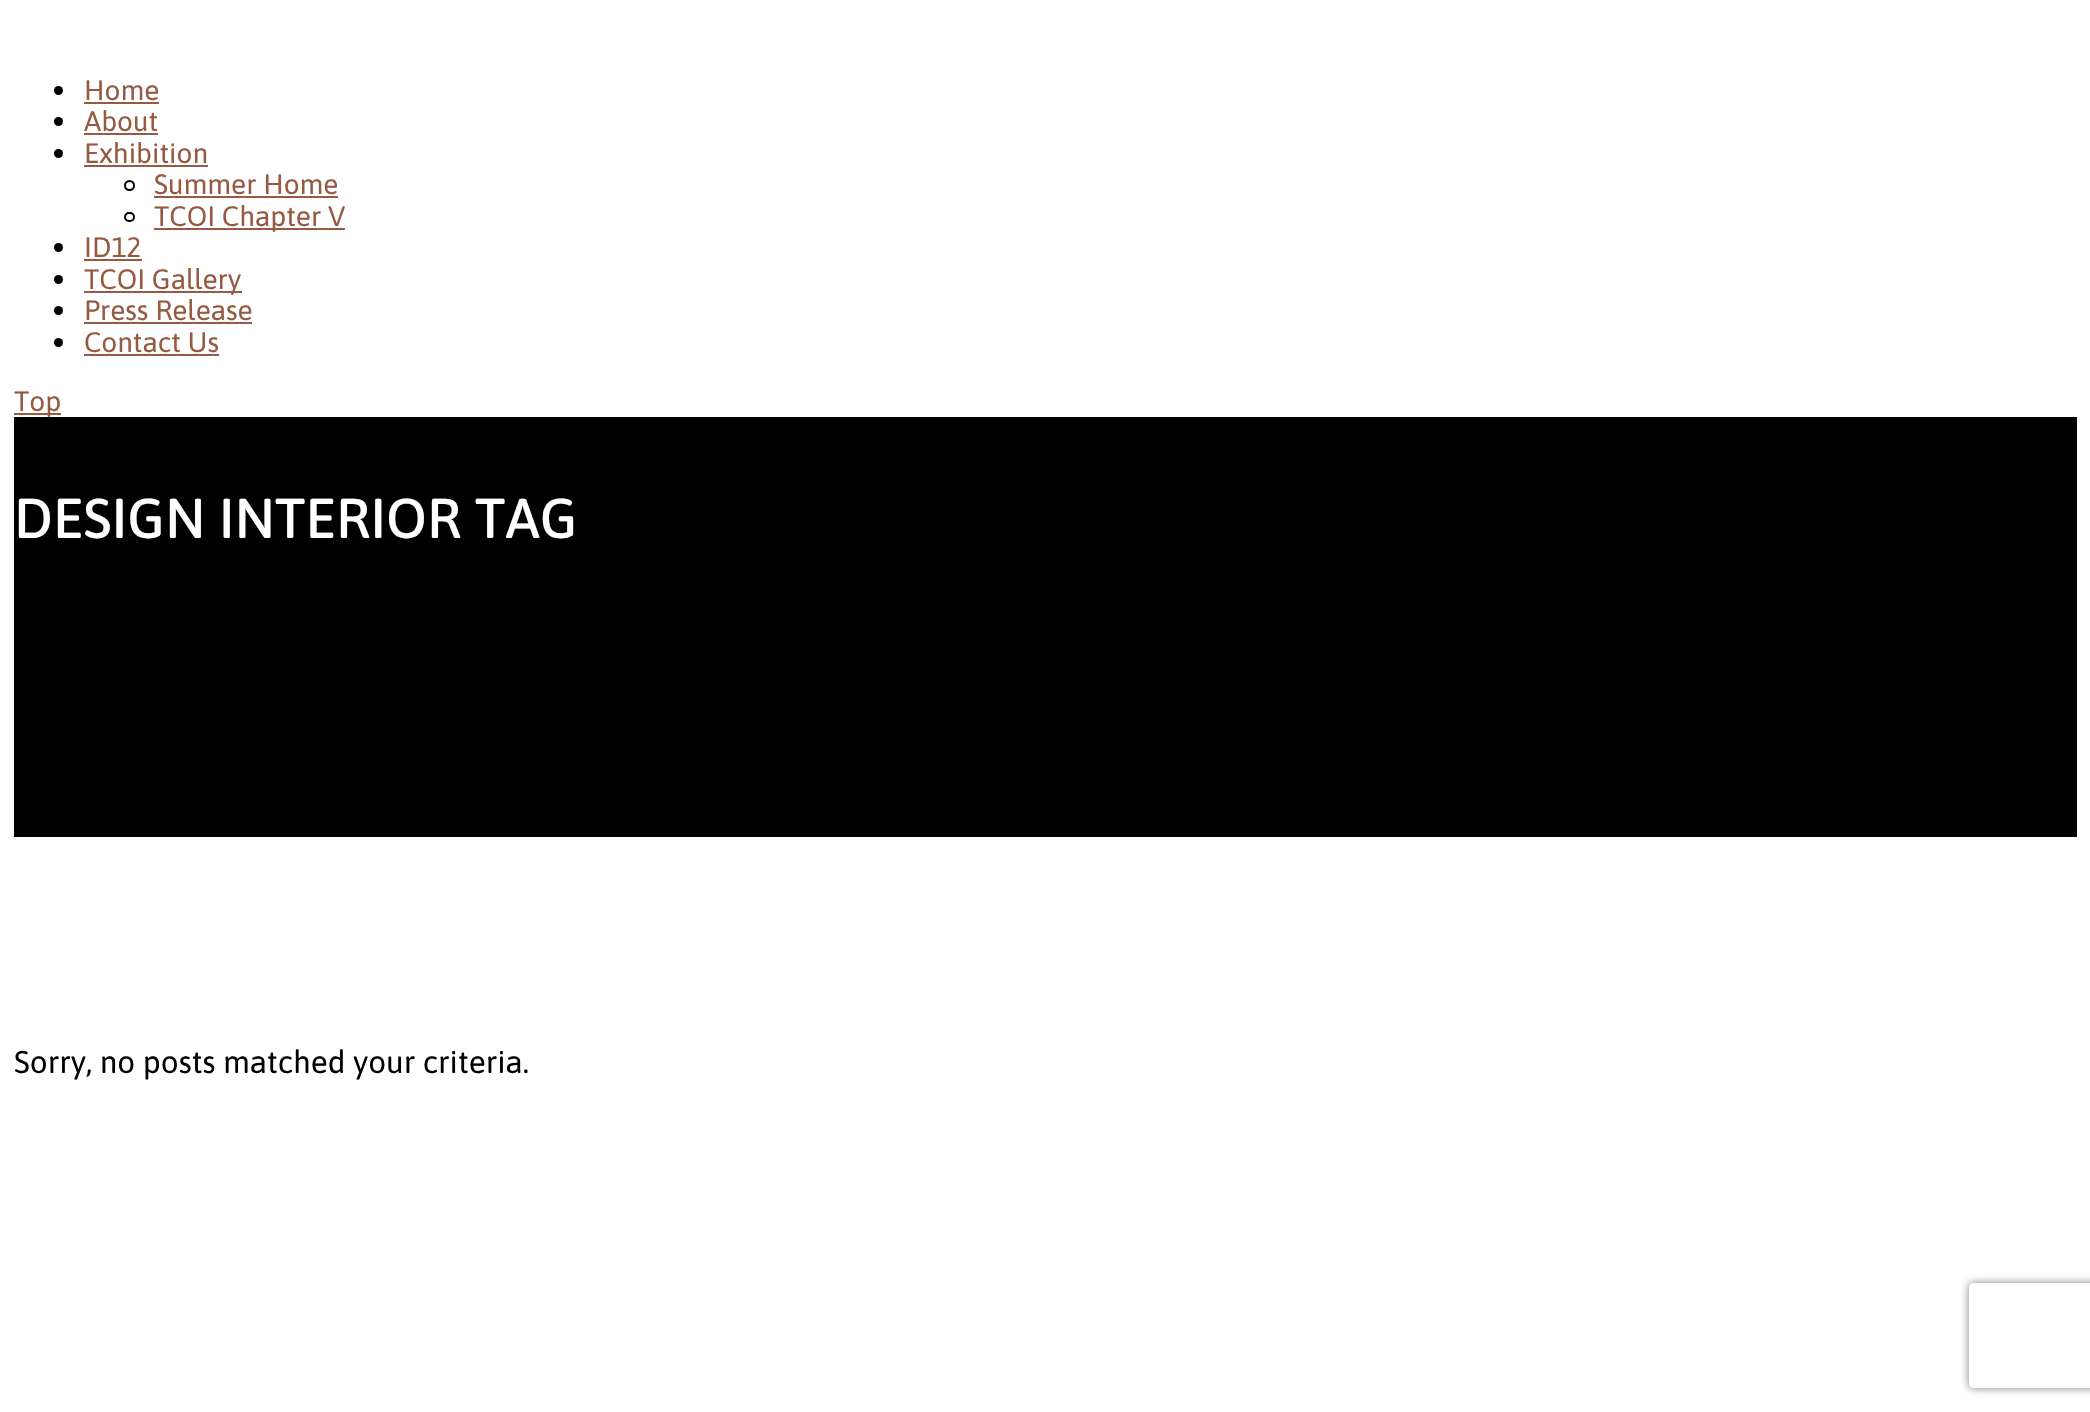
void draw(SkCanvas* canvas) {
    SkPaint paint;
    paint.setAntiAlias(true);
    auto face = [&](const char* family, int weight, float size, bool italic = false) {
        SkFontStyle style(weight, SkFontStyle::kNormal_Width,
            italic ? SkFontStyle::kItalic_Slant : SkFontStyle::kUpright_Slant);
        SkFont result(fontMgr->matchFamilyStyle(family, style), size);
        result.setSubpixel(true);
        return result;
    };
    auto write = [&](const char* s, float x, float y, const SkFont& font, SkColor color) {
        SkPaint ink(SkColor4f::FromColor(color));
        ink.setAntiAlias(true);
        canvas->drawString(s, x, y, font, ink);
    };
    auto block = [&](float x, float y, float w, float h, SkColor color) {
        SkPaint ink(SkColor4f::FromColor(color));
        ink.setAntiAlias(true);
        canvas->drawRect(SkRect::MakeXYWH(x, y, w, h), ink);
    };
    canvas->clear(SK_ColorWHITE);
    paint.setColor(SK_ColorBLACK);
    canvas->drawCircle(58.5f, 90.5f, 4.5f, paint);
    auto kFont1 = face("Asap", 400, 28);
    write("Home", 84, 100, kFont1, SkColorSetRGB(150, 89, 65));
    block(84, 102, 75, 2, SkColorSetRGB(150, 89, 65));
    canvas->drawCircle(58.5f, 121.5f, 4.5f, paint);
    write("About", 84, 131, kFont1, SkColorSetRGB(150, 89, 65));
    block(84, 133, 74, 2, SkColorSetRGB(150, 89, 65));
    canvas->drawCircle(58.5f, 153.5f, 4.5f, paint);
    write("Exhibition", 84, 163, kFont1, SkColorSetRGB(150, 89, 65));
    block(84, 165, 124, 2, SkColorSetRGB(150, 89, 65));
    paint.setStyle(SkPaint::kStroke_Style);
    paint.setStrokeWidth(2);
    canvas->drawCircle(129.5f, 185.5f, 4.5f, paint);
    write("Summer Home", 154, 194, kFont1, SkColorSetRGB(150, 89, 65));
    block(154, 196, 184, 2, SkColorSetRGB(150, 89, 65));
    canvas->drawRoundRect(SkRect::MakeXYWH(125, 213, 9, 8), 4, 4, paint);
    block(154, 228, 191, 2, SkColorSetRGB(150, 89, 65));
    write("TCOI Chapter V", 154, 226, kFont1, SkColorSetRGB(150, 89, 65));
    paint.setStyle(SkPaint::kFill_Style);
    canvas->drawCircle(58.5f, 247.5f, 4.5f, paint);
    write("ID12", 84, 257, kFont1, SkColorSetRGB(150, 89, 65));
    block(84, 259, 58, 2, SkColorSetRGB(150, 89, 65));
    canvas->drawCircle(58.5f, 279.5f, 4.5f, paint);
    block(84, 291, 158, 2, SkColorSetRGB(150, 89, 65));
    write("TCOI Gallery", 84, 289, kFont1, SkColorSetRGB(150, 89, 65));
    canvas->drawCircle(58.5f, 310.5f, 4.5f, paint);
    write("Press Release", 84, 320, kFont1, SkColorSetRGB(150, 89, 65));
    block(84, 322, 168, 2, SkColorSetRGB(150, 89, 65));
    canvas->drawCircle(58.5f, 342.5f, 4.5f, paint);
    write("Contact Us", 84, 352, kFont1, SkColorSetRGB(150, 89, 65));
    block(84, 354, 135, 2, SkColorSetRGB(150, 89, 65));
    block(14, 413, 47, 2, SkColorSetRGB(150, 89, 65));
    write("Top", 14, 411, kFont1, SkColorSetRGB(150, 89, 65));
    block(14, 417, 2063, 420, SK_ColorBLACK);
    auto kFont2 = face("Asap", 500, 56);
    write("DESIGN INTERIOR TAG", 14, 538, kFont2, SK_ColorWHITE);
    auto kFont3 = face("Asap", 400, 31.5f);
    write("Sorry, no posts matched your criteria.", 14, 1073, kFont3, SK_ColorBLACK);
    canvas->save();
    canvas->clipPath(SkPathBuilder(SkPathFillType::kEvenOdd).moveTo(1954, 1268).lineTo(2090, 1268).lineTo(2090, 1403).lineTo(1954, 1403).close().moveTo(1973, 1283).lineTo(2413, 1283).cubicTo(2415, 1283, 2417, 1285, 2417, 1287).lineTo(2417, 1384).cubicTo(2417, 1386, 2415, 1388, 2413, 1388).lineTo(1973, 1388).cubicTo(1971, 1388, 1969, 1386, 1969, 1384).lineTo(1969, 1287).cubicTo(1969, 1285, 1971, 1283, 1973, 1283).close().detach(), true);
    paint.setColor(SkColorSetRGB(128, 128, 128));
    paint.setMaskFilter(SkMaskFilter::MakeBlur(kNormal_SkBlurStyle, 4.5f));
    canvas->drawRoundRect(SkRect::MakeXYWH(1969, 1283, 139, 105), 4, 4, paint);
    paint.setMaskFilter(nullptr);
    canvas->restore();
}
